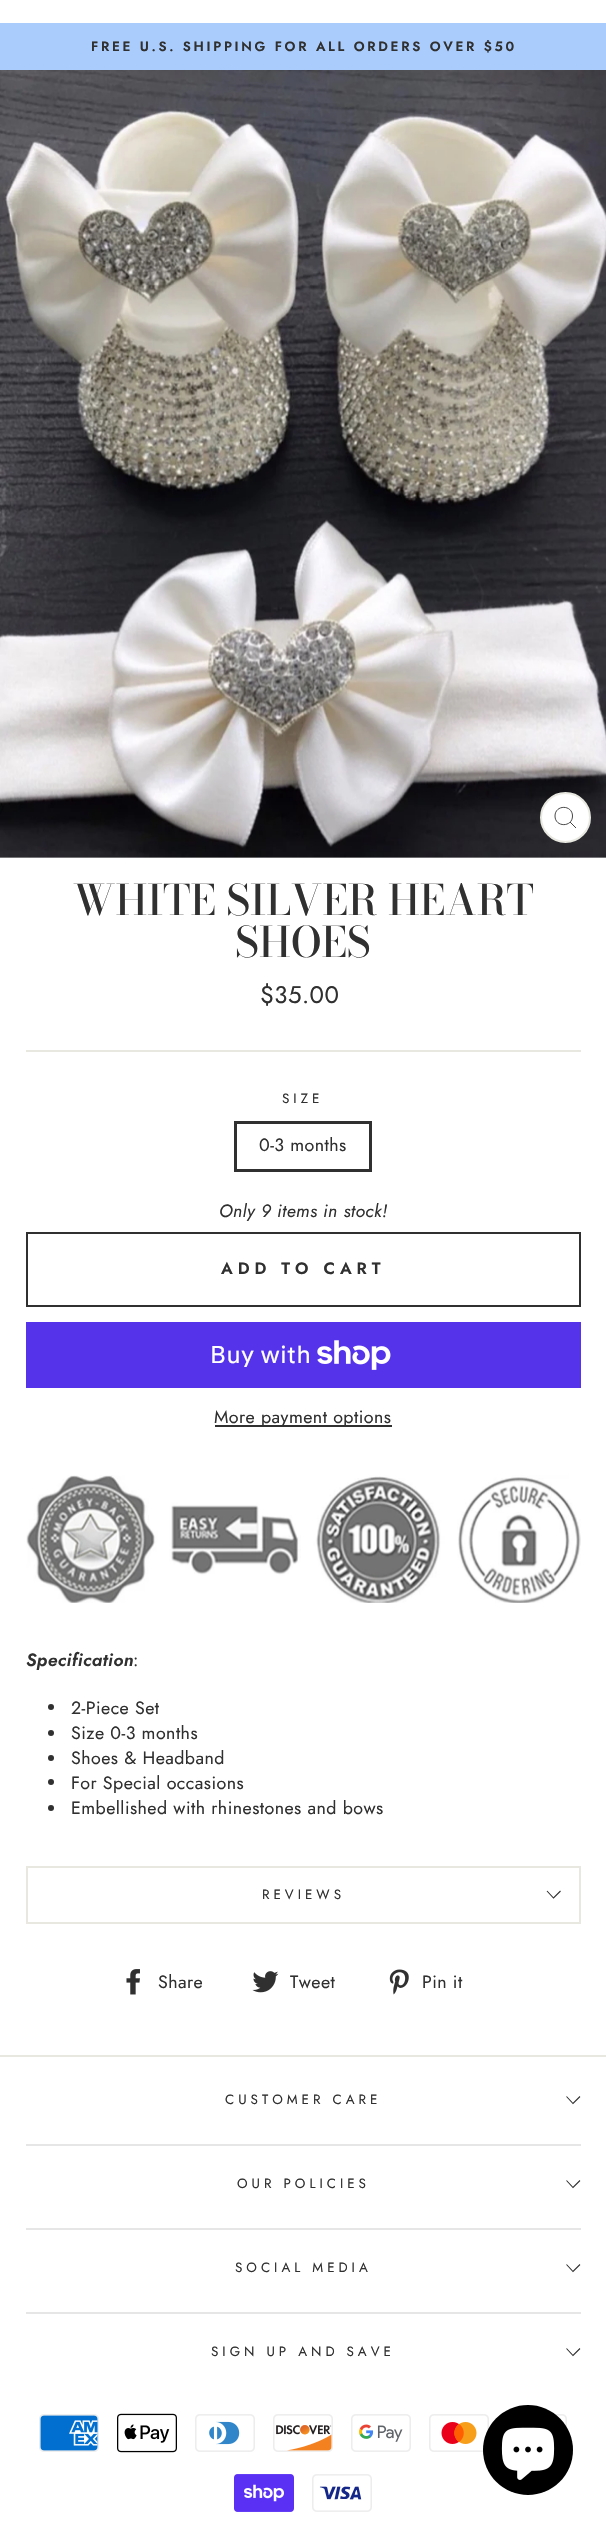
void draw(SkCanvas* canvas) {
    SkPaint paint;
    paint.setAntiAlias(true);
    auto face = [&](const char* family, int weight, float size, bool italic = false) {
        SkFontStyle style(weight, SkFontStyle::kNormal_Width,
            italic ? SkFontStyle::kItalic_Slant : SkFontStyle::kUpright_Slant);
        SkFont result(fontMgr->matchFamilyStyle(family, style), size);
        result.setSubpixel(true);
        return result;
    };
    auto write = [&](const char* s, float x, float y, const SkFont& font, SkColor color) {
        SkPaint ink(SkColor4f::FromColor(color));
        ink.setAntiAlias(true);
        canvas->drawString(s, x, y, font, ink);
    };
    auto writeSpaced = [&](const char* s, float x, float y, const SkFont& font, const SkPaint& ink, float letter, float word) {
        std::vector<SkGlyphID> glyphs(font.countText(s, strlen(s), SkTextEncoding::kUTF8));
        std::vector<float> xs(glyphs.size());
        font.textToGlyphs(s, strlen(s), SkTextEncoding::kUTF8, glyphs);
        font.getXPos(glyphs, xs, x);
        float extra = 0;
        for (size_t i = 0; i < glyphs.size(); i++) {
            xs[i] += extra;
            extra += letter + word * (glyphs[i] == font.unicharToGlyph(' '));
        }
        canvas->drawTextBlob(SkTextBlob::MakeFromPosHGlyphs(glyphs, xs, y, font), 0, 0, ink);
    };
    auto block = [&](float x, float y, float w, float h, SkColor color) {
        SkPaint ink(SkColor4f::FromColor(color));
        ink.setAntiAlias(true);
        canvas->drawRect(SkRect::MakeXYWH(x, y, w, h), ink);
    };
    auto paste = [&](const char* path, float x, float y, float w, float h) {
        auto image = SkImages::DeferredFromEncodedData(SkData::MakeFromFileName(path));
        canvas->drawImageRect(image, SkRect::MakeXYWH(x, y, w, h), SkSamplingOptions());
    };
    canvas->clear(SK_ColorWHITE);
    block(0, 23, 606, 47, SkColorSetRGB(170, 204, 252));
    auto kFont1 = face("Jost", 600, 13.4f);
    paint.setColor(SkColorSetRGB(48, 48, 48));
    writeSpaced("FREE U.S. SHIPPING FOR ALL ORDERS OVER $50", 91, 51, kFont1, paint, 2.7f, 0);
    paste("pic1.png", 0, 70, 606, 788);
    paint.setColor(SK_ColorWHITE);
    canvas->drawCircle(565.5f, 817.5f, 24.5f, paint);
    paint.setStyle(SkPaint::kStroke_Style);
    paint.setStrokeWidth(2);
    paint.setColor(SkColorSetRGB(232, 232, 225));
    canvas->drawCircle(565.5f, 817.5f, 24.5f, paint);
    paint.setStrokeWidth(0.9f);
    paint.setColor(SkColorSetRGB(48, 48, 48));
    canvas->drawPath(SkPathBuilder().moveTo(572.5f, 816).cubicTo(572.5f, 827.5f, 555, 827.5f, 555, 816).cubicTo(555, 804.5f, 572.5f, 804.5f, 572.5f, 816).close().moveTo(576, 828).lineTo(570, 822).detach(), paint);
    auto kFont2 = face("Bodoni Moda", 500, 41.75f);
    write("WHITE SILVER HEART", 73, 915, kFont2, SkColorSetRGB(48, 48, 48));
    write("SHOES", 235, 957, kFont2, SkColorSetRGB(48, 48, 48));
    auto kFont3 = face("Jost", 400, 24);
    paint.setStyle(SkPaint::kFill_Style);
    writeSpaced("$35.00", 260, 1003, kFont3, paint, 0.45f, 0);
    block(26, 1050, 555, 2, SkColorSetRGB(232, 232, 225));
    auto kFont4 = face("Jost", 400, 13.4f);
    writeSpaced("SIZE", 282, 1103, kFont4, paint, 4, 0);
    paint.setStyle(SkPaint::kStroke_Style);
    paint.setStrokeWidth(3);
    canvas->drawRect(SkRect::MakeXYWH(235.5f, 1122.5f, 135, 48), paint);
    auto kFont5 = face("Jost", 400, 17.8f);
    paint.setStyle(SkPaint::kFill_Style);
    writeSpaced("0-3 months", 259, 1151, kFont5, paint, 0.45f, 0);
    auto kFont6 = face("Jost", 400, 17.8f, true);
    writeSpaced("Only 9 items in stock!", 219, 1217, kFont6, paint, 0.45f, 0);
    paint.setStyle(SkPaint::kStroke_Style);
    paint.setStrokeWidth(2);
    canvas->drawRect(SkRect::MakeXYWH(27, 1233, 553, 73), paint);
    auto kFont7 = face("Jost", 600, 16.5f);
    paint.setStyle(SkPaint::kFill_Style);
    writeSpaced("ADD TO CART", 221, 1274, kFont7, paint, 5, 0);
    block(26, 1322, 555, 66, SkColorSetRGB(84, 51, 235));
    auto kFont8 = face("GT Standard", 400, 24);
    paint.setColor(SK_ColorWHITE);
    writeSpaced("Buy with", 210, 1363, kFont8, paint, 0.45f, 0);
    paste("pic2.png", 317, 1340, 74, 30);
    block(215, 1425, 177, 2, SkColorSetRGB(48, 48, 48));
    paint.setColor(SkColorSetRGB(48, 48, 48));
    writeSpaced("More payment options", 214, 1423, kFont5, paint, 0.45f, 0);
    paste("pic3.png", 26, 1475, 555, 128);
    auto kFont9 = face("Jost", 600, 17.8f, true);
    writeSpaced("Specification", 26, 1666, kFont9, paint, 0.45f, 0);
    writeSpaced(":", 133, 1666, kFont5, paint, 0.45f, 0);
    canvas->drawCircle(51, 1707, 3, paint);
    writeSpaced("2-Piece Set", 71, 1714, kFont5, paint, 0.45f, 0);
    canvas->drawCircle(51, 1733, 3, paint);
    writeSpaced("Size 0-3 months", 71, 1739, kFont5, paint, 0.45f, 0);
    canvas->drawCircle(51, 1758, 3, paint);
    writeSpaced("Shoes & Headband", 71, 1764, kFont5, paint, 0.45f, 0);
    canvas->drawCircle(51, 1782, 3, paint);
    writeSpaced("For Special occasions", 71, 1789, kFont5, paint, 0.45f, 0);
    canvas->drawCircle(51, 1808, 3, paint);
    writeSpaced("Embellished with rhinestones and bows", 71, 1814, kFont5, paint, 0.45f, 0);
    block(26, 1922, 555, 2, SkColorSetRGB(232, 232, 225));
    block(26, 1866, 555, 2, SkColorSetRGB(232, 232, 225));
    block(579, 1866, 2, 56, SkColorSetRGB(232, 232, 225));
    block(26, 1866, 2, 56, SkColorSetRGB(232, 232, 225));
    writeSpaced("REVIEWS", 262, 1899, kFont4, paint, 4, 0);
    paint.setStyle(SkPaint::kStroke_Style);
    paint.setStrokeWidth(1.1f);
    canvas->drawPath(SkPathBuilder().moveTo(547, 1891).lineTo(553.5f, 1898).lineTo(560.5f, 1891).detach(), paint);
    paste("pic4.png", 126, 1969, 14, 26);
    paint.setStyle(SkPaint::kFill_Style);
    writeSpaced("Share", 158, 1988, kFont5, paint, 0.45f, 0);
    paste("pic5.png", 252, 1971, 27, 22);
    writeSpaced("Tweet", 290, 1988, kFont5, paint, 0.45f, 0);
    paste("pic6.png", 389, 1969, 20, 26);
    writeSpaced("Pin it", 422, 1988, kFont5, paint, 0.45f, 0);
    block(0, 2055, 606, 2, SkColorSetRGB(232, 232, 225));
    writeSpaced("CUSTOMER CARE", 225, 2104, kFont4, paint, 4, 0);
    paint.setStyle(SkPaint::kStroke_Style);
    canvas->drawPath(SkPathBuilder().moveTo(566.5f, 2096.5f).lineTo(573, 2103.5f).lineTo(580, 2096.5f).detach(), paint);
    block(26, 2144, 555, 2, SkColorSetRGB(230, 230, 230));
    paint.setStyle(SkPaint::kFill_Style);
    writeSpaced("OUR POLICIES", 237, 2188, kFont4, paint, 4, 0);
    paint.setStyle(SkPaint::kStroke_Style);
    canvas->drawPath(SkPathBuilder().moveTo(566.5f, 2180.5f).lineTo(573, 2187.5f).lineTo(580, 2180.5f).detach(), paint);
    block(26, 2228, 555, 2, SkColorSetRGB(230, 230, 230));
    paint.setStyle(SkPaint::kFill_Style);
    writeSpaced("SOCIAL MEDIA", 235, 2272, kFont4, paint, 4, 0);
    paint.setStyle(SkPaint::kStroke_Style);
    canvas->drawPath(SkPathBuilder().moveTo(566.5f, 2264.5f).lineTo(573, 2271.5f).lineTo(580, 2264.5f).detach(), paint);
    block(26, 2312, 555, 2, SkColorSetRGB(230, 230, 230));
    paint.setStyle(SkPaint::kFill_Style);
    writeSpaced("SIGN UP AND SAVE", 211, 2356, kFont4, paint, 4, 0);
    paint.setStyle(SkPaint::kStroke_Style);
    canvas->drawPath(SkPathBuilder().moveTo(566.5f, 2348.5f).lineTo(573, 2355.5f).lineTo(580, 2348.5f).detach(), paint);
    paste("pic7.png", 39, 2414, 60, 38);
    paste("pic8.png", 117, 2413, 60, 40);
    paste("pic9.png", 195, 2414, 60, 38);
    paste("pic10.png", 273, 2414, 60, 38);
    paste("pic11.png", 351, 2414, 60, 38);
    paste("pic12.png", 429, 2414, 60, 38);
    paste("pic13.png", 555, 2414, 12, 14);
    paste("pic14.png", 234, 2474, 60, 38);
    paste("pic15.png", 312, 2474, 60, 38);
    paint.setStyle(SkPaint::kFill_Style);
    paint.setColor(SK_ColorBLACK);
    canvas->drawCircle(528, 2450, 45, paint);
    paste("pic16.png", 501, 2427, 54, 53);
}
